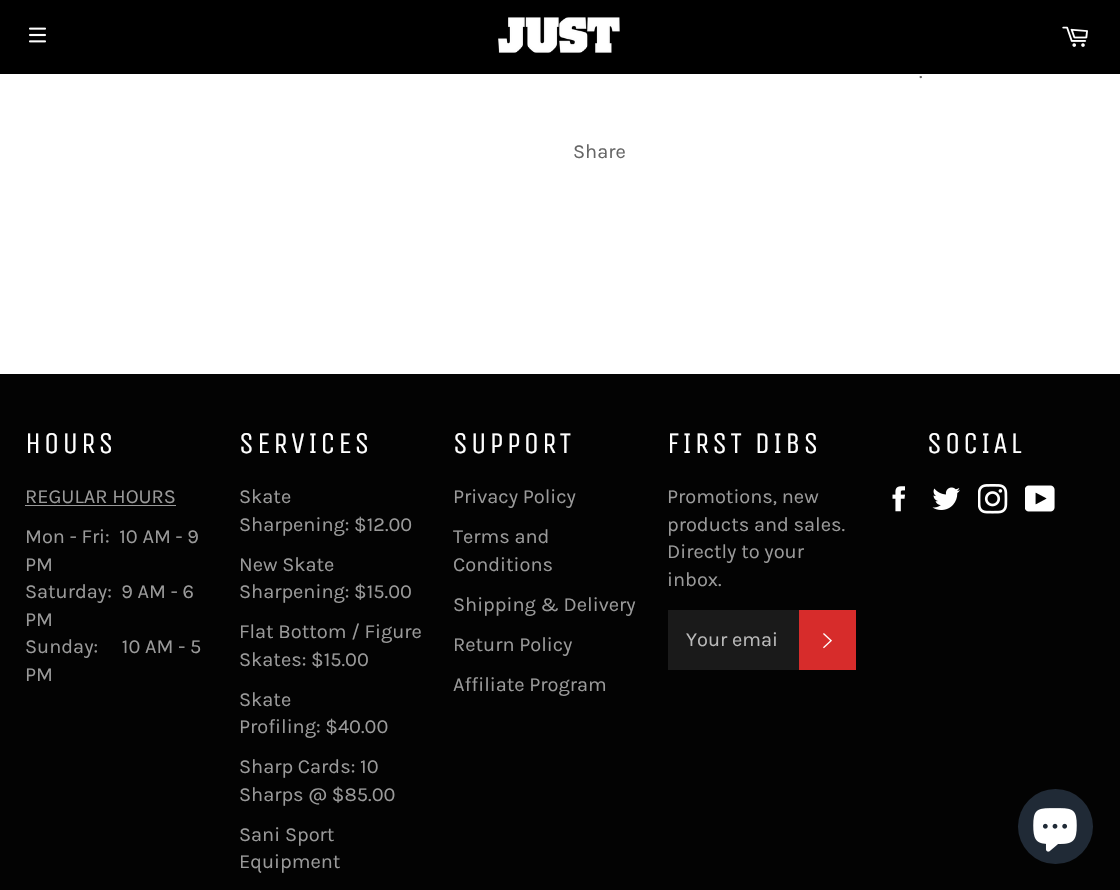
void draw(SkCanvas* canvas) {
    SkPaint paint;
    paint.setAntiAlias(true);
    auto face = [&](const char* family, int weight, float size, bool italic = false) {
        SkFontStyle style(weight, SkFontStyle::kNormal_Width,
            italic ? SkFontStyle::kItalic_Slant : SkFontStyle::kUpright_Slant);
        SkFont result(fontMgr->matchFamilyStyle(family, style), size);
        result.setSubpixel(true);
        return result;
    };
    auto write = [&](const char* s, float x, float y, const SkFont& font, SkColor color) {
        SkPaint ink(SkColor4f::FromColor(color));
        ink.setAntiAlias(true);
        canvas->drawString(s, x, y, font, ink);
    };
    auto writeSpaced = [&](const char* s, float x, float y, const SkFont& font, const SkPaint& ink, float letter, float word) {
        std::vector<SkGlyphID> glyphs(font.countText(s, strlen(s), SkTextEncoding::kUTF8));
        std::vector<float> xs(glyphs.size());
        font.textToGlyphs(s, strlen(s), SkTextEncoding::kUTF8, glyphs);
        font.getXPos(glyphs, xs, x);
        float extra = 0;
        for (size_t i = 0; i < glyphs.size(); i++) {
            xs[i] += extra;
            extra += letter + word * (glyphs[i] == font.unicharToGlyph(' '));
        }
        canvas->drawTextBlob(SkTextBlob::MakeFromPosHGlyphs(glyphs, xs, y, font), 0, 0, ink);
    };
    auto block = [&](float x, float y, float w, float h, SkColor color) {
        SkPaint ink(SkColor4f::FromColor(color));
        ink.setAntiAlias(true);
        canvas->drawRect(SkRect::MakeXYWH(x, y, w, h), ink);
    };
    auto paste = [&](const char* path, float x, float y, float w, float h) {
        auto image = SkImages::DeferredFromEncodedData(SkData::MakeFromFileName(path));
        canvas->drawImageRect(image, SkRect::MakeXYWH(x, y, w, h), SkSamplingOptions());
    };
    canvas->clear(SK_ColorWHITE);
    block(0, 0, 1120, 74, SK_ColorBLACK);
    paste("pic1.png", 498, 17, 122, 36);
    paste("pic2.png", 29, 27, 17, 16);
    paste("pic3.png", 1062, 26, 26, 21);
    auto kFont1 = face("Karla", 400, 20);
    write(".", 919, 78, kFont1, SkColorSetRGB(102, 102, 102));
    write("Share", 573, 158, kFont1, SkColorSetRGB(102, 102, 102));
    block(0, 374, 1120, 516, SkColorSetRGB(3, 3, 3));
    auto kFont2 = face("Unica One", 400, 30);
    paint.setColor(SK_ColorWHITE);
    writeSpaced("HOURS", 25, 453, kFont2, paint, 3, 0);
    write("REGULAR HOURS", 25, 503, kFont1, SkColorSetRGB(154, 154, 154));
    block(25, 505, 151, 1, SkColorSetRGB(154, 154, 154));
    write("Mon - Fri:  10 AM - 9", 25, 543, kFont1, SkColorSetRGB(154, 154, 154));
    write("PM", 25, 571, kFont1, SkColorSetRGB(154, 154, 154));
    write("Saturday:  9 AM - 6", 25, 598, kFont1, SkColorSetRGB(154, 154, 154));
    write("PM", 25, 626, kFont1, SkColorSetRGB(154, 154, 154));
    write("Sunday:     10 AM - 5", 25, 653, kFont1, SkColorSetRGB(154, 154, 154));
    write("PM", 25, 681, kFont1, SkColorSetRGB(154, 154, 154));
    writeSpaced("SERVICES", 239, 453, kFont2, paint, 3, 0);
    write("Skate", 239, 503, kFont1, SkColorSetRGB(154, 154, 154));
    write("Sharpening: $12.00", 239, 531, kFont1, SkColorSetRGB(154, 154, 154));
    write("New Skate", 239, 571, kFont1, SkColorSetRGB(154, 154, 154));
    write("Sharpening: $15.00", 239, 598, kFont1, SkColorSetRGB(154, 154, 154));
    write("Flat Bottom / Figure", 239, 638, kFont1, SkColorSetRGB(154, 154, 154));
    write("Skates: $15.00", 239, 666, kFont1, SkColorSetRGB(154, 154, 154));
    write("Skate", 239, 706, kFont1, SkColorSetRGB(154, 154, 154));
    write("Profiling: $40.00", 239, 733, kFont1, SkColorSetRGB(154, 154, 154));
    write("Sharp Cards: 10", 239, 773, kFont1, SkColorSetRGB(154, 154, 154));
    write("Sharps @ $85.00", 239, 801, kFont1, SkColorSetRGB(154, 154, 154));
    write("Sani Sport", 239, 841, kFont1, SkColorSetRGB(154, 154, 154));
    write("Equipment", 239, 868, kFont1, SkColorSetRGB(154, 154, 154));
    writeSpaced("SUPPORT", 453, 453, kFont2, paint, 3, 0);
    write("Privacy Policy", 453, 503, kFont1, SkColorSetRGB(154, 154, 154));
    write("Terms and", 453, 543, kFont1, SkColorSetRGB(154, 154, 154));
    write("Conditions", 453, 571, kFont1, SkColorSetRGB(154, 154, 154));
    write("Shipping & Delivery", 453, 611, kFont1, SkColorSetRGB(154, 154, 154));
    write("Return Policy", 453, 651, kFont1, SkColorSetRGB(154, 154, 154));
    write("Affiliate Program", 453, 691, kFont1, SkColorSetRGB(154, 154, 154));
    writeSpaced("FIRST DIBS", 667, 453, kFont2, paint, 3, 0);
    write("Promotions, new", 667, 503, kFont1, SkColorSetRGB(154, 154, 154));
    write("products and sales.", 667, 531, kFont1, SkColorSetRGB(154, 154, 154));
    write("Directly to your", 667, 558, kFont1, SkColorSetRGB(154, 154, 154));
    write("inbox.", 667, 586, kFont1, SkColorSetRGB(154, 154, 154));
    block(668, 610, 131, 60, SkColorSetRGB(26, 26, 26));
    write("Your emai", 686, 646, kFont1, SkColorSetRGB(186, 186, 186));
    block(799, 610, 57, 60, SkColorSetRGB(215, 44, 43));
    paste("pic4.png", 823, 633, 9, 16);
    writeSpaced("SOCIAL", 927, 453, kFont2, paint, 3, 0);
    paste("pic5.png", 892, 486, 13, 26);
    paste("pic6.png", 932, 487, 28, 23);
    paste("pic7.png", 978, 484, 30, 30);
    paste("pic8.png", 1025, 485, 30, 27);
    paint.setColor(SkColorSetRGB(32, 42, 54));
    canvas->drawCircle(1055.5f, 826.5f, 37.5f, paint);
    paste("pic9.png", 1033, 808, 44, 44);
}
